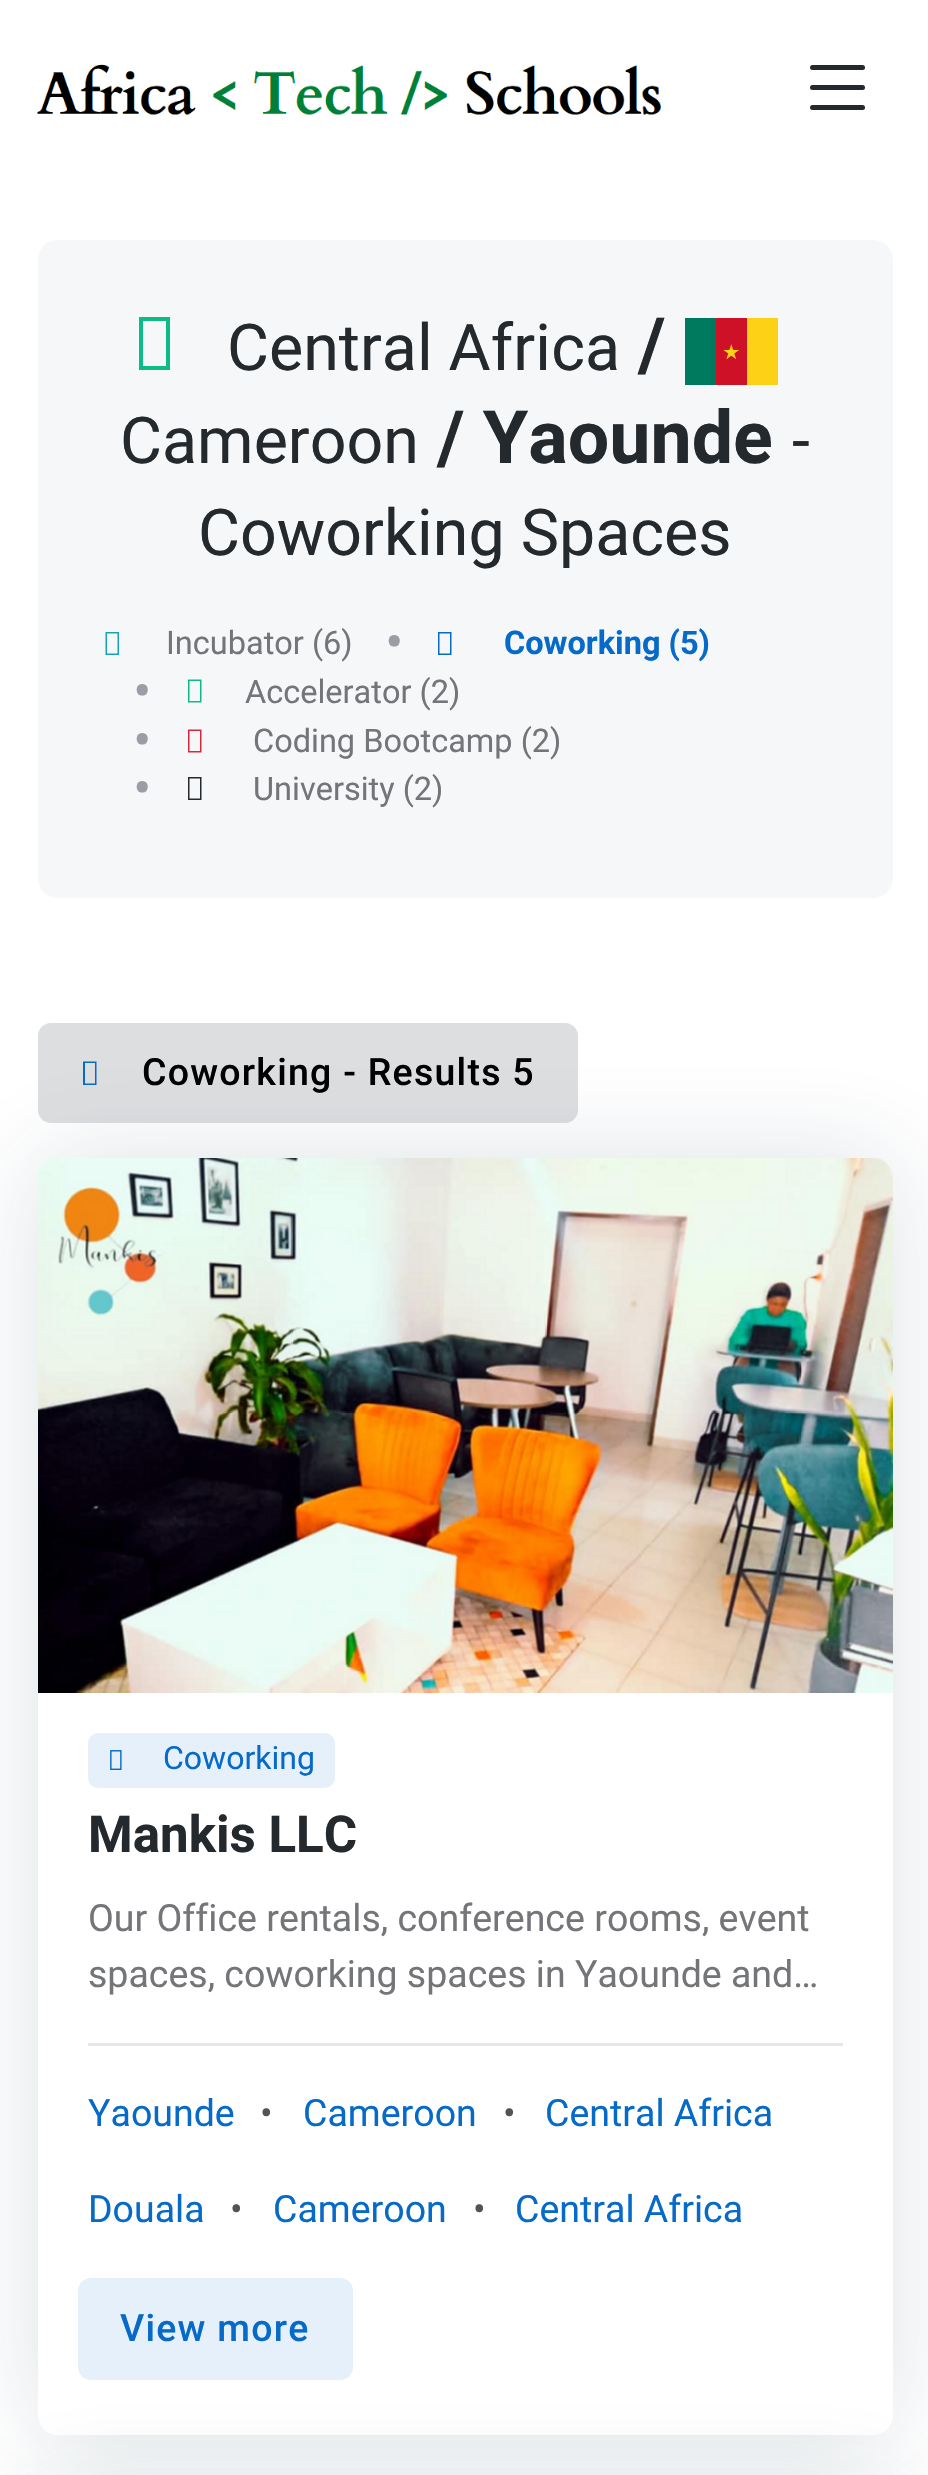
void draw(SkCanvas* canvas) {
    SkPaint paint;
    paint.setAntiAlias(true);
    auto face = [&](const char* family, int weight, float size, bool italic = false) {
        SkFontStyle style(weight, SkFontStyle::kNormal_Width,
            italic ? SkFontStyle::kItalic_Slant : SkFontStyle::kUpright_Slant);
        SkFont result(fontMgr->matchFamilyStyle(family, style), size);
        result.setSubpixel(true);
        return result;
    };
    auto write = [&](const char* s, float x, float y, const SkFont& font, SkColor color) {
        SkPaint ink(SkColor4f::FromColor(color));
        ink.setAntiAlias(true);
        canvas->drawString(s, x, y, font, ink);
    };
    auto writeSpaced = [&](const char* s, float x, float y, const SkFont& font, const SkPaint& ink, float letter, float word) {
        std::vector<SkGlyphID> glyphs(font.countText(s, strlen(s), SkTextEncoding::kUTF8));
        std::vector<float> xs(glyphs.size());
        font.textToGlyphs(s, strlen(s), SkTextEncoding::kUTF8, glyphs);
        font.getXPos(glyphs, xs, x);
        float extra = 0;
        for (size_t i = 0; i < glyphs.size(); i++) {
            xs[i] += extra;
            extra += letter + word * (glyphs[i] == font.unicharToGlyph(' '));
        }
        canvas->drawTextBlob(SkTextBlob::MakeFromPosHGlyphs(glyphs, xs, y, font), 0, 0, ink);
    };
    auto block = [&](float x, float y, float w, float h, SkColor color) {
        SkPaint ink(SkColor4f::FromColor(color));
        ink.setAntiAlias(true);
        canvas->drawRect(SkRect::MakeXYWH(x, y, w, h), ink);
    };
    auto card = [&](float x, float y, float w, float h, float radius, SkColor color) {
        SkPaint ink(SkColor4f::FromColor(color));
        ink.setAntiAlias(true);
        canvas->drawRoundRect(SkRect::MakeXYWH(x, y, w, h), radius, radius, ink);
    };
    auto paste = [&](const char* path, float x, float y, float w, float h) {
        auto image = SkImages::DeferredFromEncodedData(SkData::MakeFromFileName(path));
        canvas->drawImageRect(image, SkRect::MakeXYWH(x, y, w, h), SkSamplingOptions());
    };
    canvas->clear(SK_ColorWHITE);
    paste("pic1.png", 37, 64, 624, 52);
    card(810, 65, 55, 5, 2.5f, SkColorSetRGB(36, 41, 45));
    card(810, 85, 55, 5, 2.5f, SkColorSetRGB(36, 41, 45));
    card(810, 105, 55, 5, 2.5f, SkColorSetRGB(36, 41, 45));
    card(38, 240, 855, 658, 20, SkColorSetRGB(245, 247, 249));
    paint.setColor(SkColorSetRGB(12, 188, 135));
    canvas->drawPath(SkPathBuilder().moveTo(139, 370).lineTo(139, 317).lineTo(170, 317).lineTo(170, 370).close().moveTo(143, 366).lineTo(166, 366).lineTo(166, 321).lineTo(143, 321).close().detach(), paint);
    auto kFont1 = face("Heebo", 400, 64.5f);
    write("Central Africa", 227, 370, kFont1, SkColorSetRGB(36, 41, 45));
    auto kFont2 = face("Heebo", 700, 73.5f);
    write("/", 638, 370, kFont2, SkColorSetRGB(36, 41, 45));
    paste("pic2.png", 685, 318, 93, 67);
    write("Cameroon", 120, 463, kFont1, SkColorSetRGB(36, 41, 45));
    write("/ Yaounde", 437, 463, kFont2, SkColorSetRGB(36, 41, 45));
    write("-", 792, 463, kFont1, SkColorSetRGB(36, 41, 45));
    write("Coworking Spaces", 198, 555, kFont1, SkColorSetRGB(36, 41, 45));
    paint.setColor(SkColorSetRGB(23, 162, 184));
    canvas->drawPath(SkPathBuilder().moveTo(105.5f, 655).lineTo(105.5f, 632).lineTo(119, 632).lineTo(119, 655).close().moveTo(107, 653.5f).lineTo(117.5f, 653.5f).lineTo(117.5f, 633.5f).lineTo(107, 633.5f).close().detach(), paint);
    auto kFont3 = face("Roboto", 400, 32.5f);
    write("Incubator (6)", 166, 654, kFont3, SkColorSetRGB(116, 117, 121));
    auto kFont4 = face("Roboto", 400, 55);
    write("•", 385, 661, kFont4, SkColorSetRGB(154, 158, 164));
    paint.setColor(SkColorSetRGB(6, 106, 201));
    canvas->drawPath(SkPathBuilder().moveTo(438, 655).lineTo(438, 632).lineTo(451.5f, 632).lineTo(451.5f, 655).close().moveTo(439.5f, 653.5f).lineTo(450, 653.5f).lineTo(450, 633.5f).lineTo(439.5f, 633.5f).close().detach(), paint);
    auto kFont5 = face("Roboto", 700, 32.5f);
    write("Coworking (5)", 504, 654, kFont5, SkColorSetRGB(6, 106, 201));
    write("•", 133, 710, kFont4, SkColorSetRGB(154, 158, 164));
    paint.setColor(SkColorSetRGB(12, 188, 135));
    canvas->drawPath(SkPathBuilder().moveTo(188, 702.5f).lineTo(188, 679.5f).lineTo(201.5f, 679.5f).lineTo(201.5f, 702.5f).close().moveTo(189.5f, 701).lineTo(200, 701).lineTo(200, 681).lineTo(189.5f, 681).close().detach(), paint);
    write("Accelerator (2)", 245, 703, kFont3, SkColorSetRGB(116, 117, 121));
    write("•", 133, 759, kFont4, SkColorSetRGB(154, 158, 164));
    paint.setColor(SkColorSetRGB(214, 41, 62));
    canvas->drawPath(SkPathBuilder().moveTo(188, 752.5f).lineTo(188, 729.5f).lineTo(201.5f, 729.5f).lineTo(201.5f, 752.5f).close().moveTo(189.5f, 751).lineTo(200, 751).lineTo(200, 731).lineTo(189.5f, 731).close().detach(), paint);
    write("Coding Bootcamp (2)", 253, 752, kFont3, SkColorSetRGB(116, 117, 121));
    write("•", 133, 807, kFont4, SkColorSetRGB(154, 158, 164));
    paint.setColor(SkColorSetRGB(36, 41, 45));
    canvas->drawPath(SkPathBuilder().moveTo(188, 800).lineTo(188, 777).lineTo(201.5f, 777).lineTo(201.5f, 800).close().moveTo(189.5f, 798.5f).lineTo(200, 798.5f).lineTo(200, 778.5f).lineTo(189.5f, 778.5f).close().detach(), paint);
    write("University (2)", 253, 800, kFont3, SkColorSetRGB(116, 117, 121));
    paint.setColor(SkColorSetRGB(221, 222, 224));
    canvas->drawRoundRect(SkRect::MakeXYWH(39.5f, 1024.5f, 537, 97), 11.5f, 11.5f, paint);
    paint.setStyle(SkPaint::kStroke_Style);
    paint.setStrokeWidth(3);
    canvas->drawRoundRect(SkRect::MakeXYWH(39.5f, 1024.5f, 537, 97), 11.5f, 11.5f, paint);
    paint.setStyle(SkPaint::kFill_Style);
    paint.setColor(SkColorSetRGB(6, 106, 201));
    canvas->drawPath(SkPathBuilder().moveTo(83, 1085).lineTo(83, 1061.5f).lineTo(96.5f, 1061.5f).lineTo(96.5f, 1085).close().moveTo(85, 1083.5f).lineTo(95, 1083.5f).lineTo(95, 1063).lineTo(85, 1063).close().detach(), paint);
    auto kFont6 = face("Roboto", 500, 37.5f);
    paint.setColor(SK_ColorBLACK);
    writeSpaced("Coworking - Results 5", 142, 1085, kFont6, paint, 1.25f, 0);
    paint.setColor(SkColorSetARGB(38, 29, 58, 83));
    paint.setMaskFilter(SkMaskFilter::MakeBlur(kNormal_SkBlurStyle, 50));
    canvas->drawRoundRect(SkRect::MakeXYWH(38, 1158, 855, 1277), 20, 20, paint);
    paint.setMaskFilter(nullptr);
    card(38, 1158, 855, 1277, 20, SK_ColorWHITE);
    paste("pic3.png", 38, 1158, 855, 535);
    card(88, 1733, 247, 55, 10, SkColorSetRGB(230, 240, 250));
    paste("pic4.png", 110, 1750, 12, 20);
    auto kFont7 = face("Roboto", 400, 32);
    write("Coworking", 163, 1769, kFont7, SkColorSetRGB(6, 106, 201));
    auto kFont8 = face("Heebo", 700, 51);
    write("Mankis LLC", 88, 1852, kFont8, SkColorSetRGB(36, 41, 45));
    auto kFont9 = face("Roboto", 400, 37.5f);
    write("Our Office rentals, conference rooms, event", 88, 1931, kFont9, SkColorSetRGB(116, 117, 121));
    write("spaces, coworking spaces in Yaounde and…", 88, 1987, kFont9, SkColorSetRGB(116, 117, 121));
    block(88, 2043, 755, 3, SkColorSetRGB(230, 231, 232));
    write("Yaounde", 88, 2126, kFont9, SkColorSetRGB(6, 106, 201));
    write("•", 260, 2126, kFont9, SkColorSetRGB(80, 84, 87));
    write("Cameroon", 303, 2126, kFont9, SkColorSetRGB(6, 106, 201));
    write("•", 503, 2126, kFont9, SkColorSetRGB(80, 84, 87));
    write("Central Africa", 545, 2126, kFont9, SkColorSetRGB(6, 106, 201));
    write("Douala", 88, 2222, kFont9, SkColorSetRGB(6, 106, 201));
    write("•", 230, 2222, kFont9, SkColorSetRGB(80, 84, 87));
    write("Cameroon", 273, 2222, kFont9, SkColorSetRGB(6, 106, 201));
    write("•", 473, 2222, kFont9, SkColorSetRGB(80, 84, 87));
    write("Central Africa", 515, 2222, kFont9, SkColorSetRGB(6, 106, 201));
    paint.setColor(SK_ColorWHITE);
    canvas->drawPath(SkPathBuilder().moveTo(38, 2278).lineTo(893, 2278).lineTo(893, 2415).cubicTo(893, 2426, 884, 2435, 873, 2435).lineTo(58, 2435).cubicTo(47, 2435, 38, 2426, 38, 2415).close().detach(), paint);
    card(78, 2278, 275, 102, 13, SkColorSetRGB(230, 240, 250));
    paint.setColor(SkColorSetRGB(6, 106, 201));
    writeSpaced("View more", 120, 2341, kFont6, paint, 1.25f, 0);
    paint.setColor(SkColorSetARGB(38, 29, 58, 83));
    paint.setMaskFilter(SkMaskFilter::MakeBlur(kNormal_SkBlurStyle, 50));
    canvas->drawRoundRect(SkRect::MakeXYWH(38, 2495, 855, 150), 20, 20, paint);
    paint.setMaskFilter(nullptr);
}
